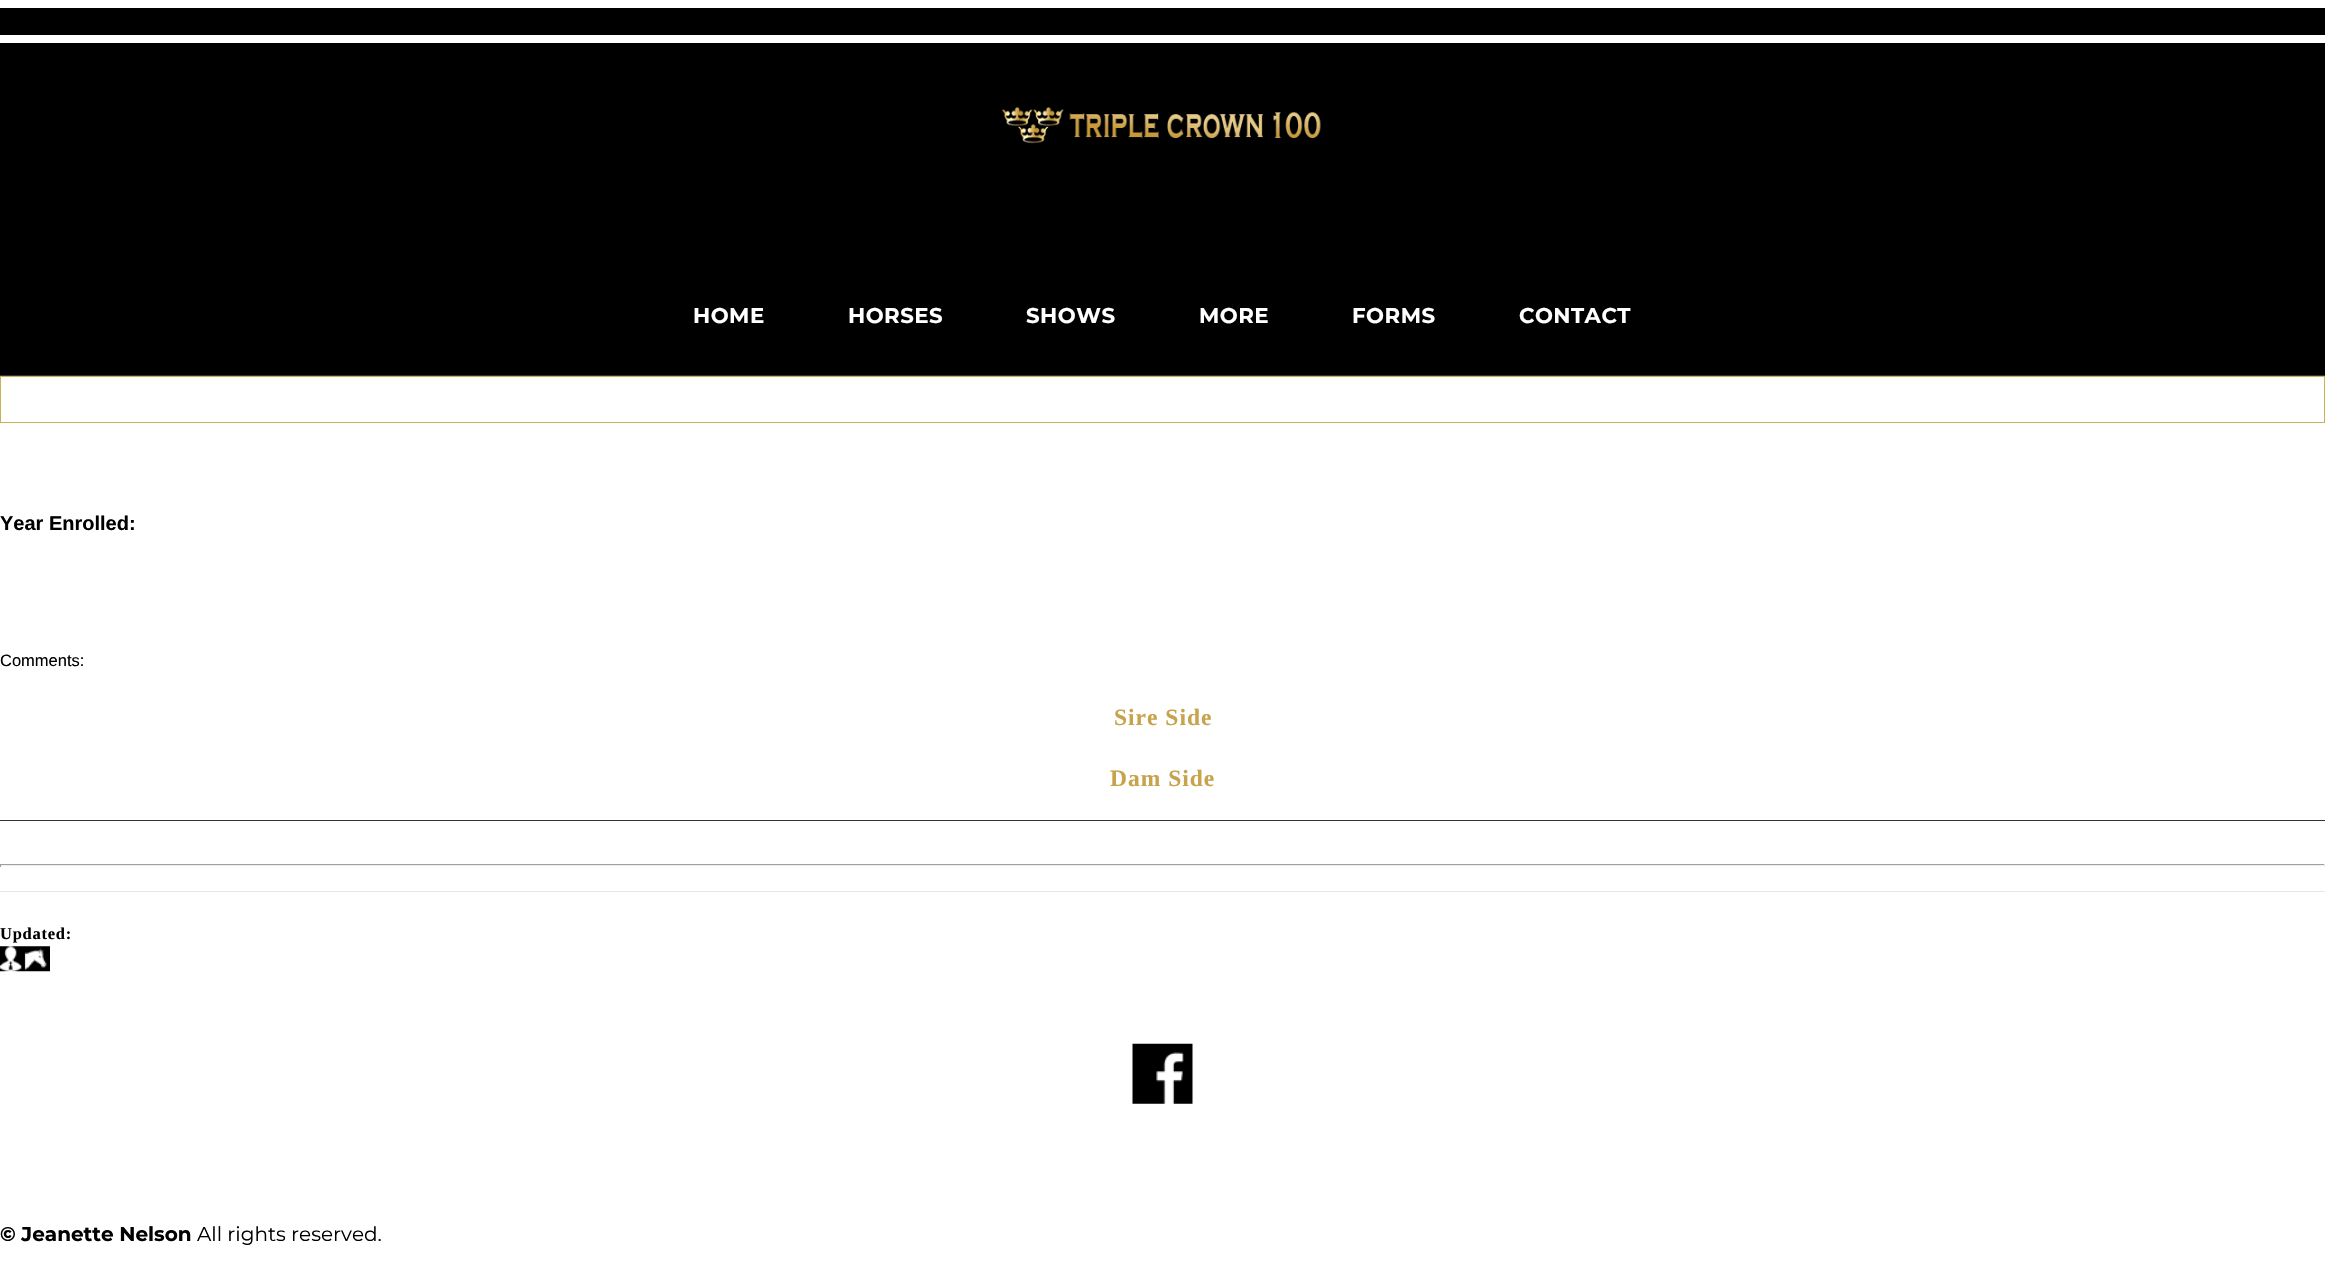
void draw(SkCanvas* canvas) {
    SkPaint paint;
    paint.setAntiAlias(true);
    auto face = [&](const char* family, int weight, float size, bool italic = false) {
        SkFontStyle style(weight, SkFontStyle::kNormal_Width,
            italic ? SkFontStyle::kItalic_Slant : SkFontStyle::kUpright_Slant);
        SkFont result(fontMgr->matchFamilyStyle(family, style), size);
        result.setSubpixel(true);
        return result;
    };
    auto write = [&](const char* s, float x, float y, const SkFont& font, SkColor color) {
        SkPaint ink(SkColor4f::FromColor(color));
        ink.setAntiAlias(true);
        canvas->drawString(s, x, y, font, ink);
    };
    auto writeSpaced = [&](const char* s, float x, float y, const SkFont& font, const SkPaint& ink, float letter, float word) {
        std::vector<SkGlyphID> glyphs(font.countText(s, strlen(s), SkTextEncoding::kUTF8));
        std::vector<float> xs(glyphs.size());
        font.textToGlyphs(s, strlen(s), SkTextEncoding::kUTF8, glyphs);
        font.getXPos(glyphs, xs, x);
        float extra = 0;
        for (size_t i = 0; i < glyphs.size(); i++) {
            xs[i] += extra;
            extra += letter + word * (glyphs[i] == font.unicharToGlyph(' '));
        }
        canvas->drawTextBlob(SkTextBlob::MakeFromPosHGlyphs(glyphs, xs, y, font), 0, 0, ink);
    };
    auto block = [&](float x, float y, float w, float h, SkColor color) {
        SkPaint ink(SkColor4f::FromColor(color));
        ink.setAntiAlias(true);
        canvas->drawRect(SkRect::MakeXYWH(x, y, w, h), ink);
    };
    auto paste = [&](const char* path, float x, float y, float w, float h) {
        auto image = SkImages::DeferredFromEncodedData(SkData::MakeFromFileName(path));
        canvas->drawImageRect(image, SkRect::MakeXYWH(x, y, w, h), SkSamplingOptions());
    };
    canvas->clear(SK_ColorWHITE);
    block(0, 375, 2325, 1, SkColorSetRGB(51, 51, 51));
    block(0, 8, 2325, 27, SK_ColorBLACK);
    block(0, 43, 2325, 332, SK_ColorBLACK);
    paste("pic1.png", 1001, 106, 320, 38);
    auto kFont1 = face("Montserrat", 700, 21.25f);
    paint.setColor(SK_ColorWHITE);
    writeSpaced("HOME", 693, 323, kFont1, paint, 0.5f, 0);
    writeSpaced("HORSES", 848, 323, kFont1, paint, 0.5f, 0);
    writeSpaced("SHOWS", 1026, 323, kFont1, paint, 0.5f, 0);
    writeSpaced("MORE", 1199, 323, kFont1, paint, 0.5f, 0);
    writeSpaced("FORMS", 1352, 323, kFont1, paint, 0.5f, 0);
    writeSpaced("CONTACT", 1519, 323, kFont1, paint, 0.5f, 0);
    paint.setStyle(SkPaint::kStroke_Style);
    paint.setStrokeWidth(1);
    paint.setColor(SkColorSetRGB(197, 179, 88));
    canvas->drawRect(SkRect::MakeXYWH(0.5f, 376.5f, 2324, 46), paint);
    auto kFont2 = face("Liberation Sans", 700, 20);
    write("Year Enrolled:", 0, 530, kFont2, SK_ColorBLACK);
    auto kFont3 = face("Liberation Sans", 400, 16.5f);
    write("Comments:", 0, 666, kFont3, SK_ColorBLACK);
    auto kFont4 = face("Liberation Serif", 700, 23.5f);
    paint.setStyle(SkPaint::kFill_Style);
    paint.setColor(SkColorSetRGB(199, 163, 75));
    writeSpaced("Sire Side", 1114, 725, kFont4, paint, 1, 0);
    block(0, 820, 2325, 1, SkColorSetRGB(51, 51, 51));
    writeSpaced("Dam Side", 1110, 786, kFont4, paint, 1, 0);
    block(0, 864, 2325, 1, SkColorSetRGB(159, 159, 159));
    block(2324, 864, 1, 3, SkColorSetRGB(238, 238, 238));
    block(0, 865, 2325, 1, SkColorSetRGB(238, 238, 238));
    block(0, 864, 1, 3, SkColorSetRGB(159, 159, 159));
    block(0, 891, 2325, 1, SkColorSetRGB(231, 230, 230));
    auto kFont5 = face("Liberation Serif", 700, 16.5f);
    paint.setColor(SK_ColorBLACK);
    writeSpaced("Updated:", 0, 939, kFont5, paint, 0.75f, 0);
    paste("pic2.png", 0, 946, 50, 26);
    paste("pic3.png", 1132, 1043, 61, 61);
    auto kFont6 = face("Montserrat", 700, 20);
    write("© Jeanette Nelson", 0, 1241, kFont6, SK_ColorBLACK);
    auto kFont7 = face("Montserrat", 400, 20);
    write("All rights reserved.", 197, 1241, kFont7, SK_ColorBLACK);
}
